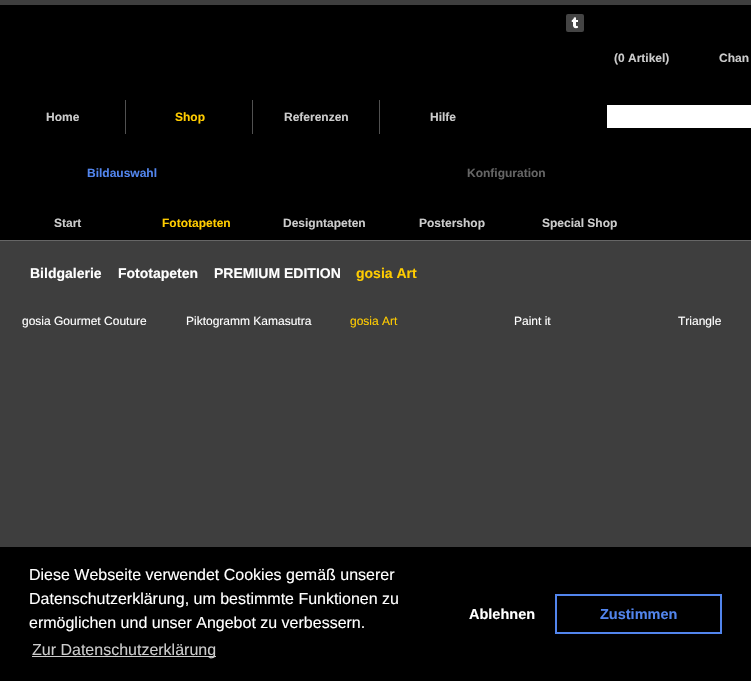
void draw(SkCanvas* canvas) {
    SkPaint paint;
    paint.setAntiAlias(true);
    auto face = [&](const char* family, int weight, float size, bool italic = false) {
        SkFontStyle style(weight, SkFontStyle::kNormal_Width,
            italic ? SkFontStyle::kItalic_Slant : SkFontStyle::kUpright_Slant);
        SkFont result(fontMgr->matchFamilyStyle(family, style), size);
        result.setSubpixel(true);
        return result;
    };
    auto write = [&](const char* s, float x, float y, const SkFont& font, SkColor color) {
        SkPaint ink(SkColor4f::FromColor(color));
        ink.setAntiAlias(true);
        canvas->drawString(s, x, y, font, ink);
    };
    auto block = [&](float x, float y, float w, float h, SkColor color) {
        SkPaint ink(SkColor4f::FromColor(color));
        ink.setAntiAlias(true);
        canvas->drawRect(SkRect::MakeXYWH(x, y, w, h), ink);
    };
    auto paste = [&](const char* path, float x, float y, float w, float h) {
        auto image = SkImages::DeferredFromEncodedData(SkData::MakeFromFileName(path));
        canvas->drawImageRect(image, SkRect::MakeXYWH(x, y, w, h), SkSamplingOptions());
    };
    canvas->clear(SkColorSetRGB(62, 62, 62));
    block(0, 5, 751, 235, SK_ColorBLACK);
    paste("pic1.png", 566, 14, 18, 18);
    auto kFont1 = face("Liberation Sans", 700, 12);
    write("(0 Artikel)", 614, 62, kFont1, SkColorSetRGB(204, 204, 204));
    write("Chan", 719, 62, kFont1, SkColorSetRGB(204, 204, 204));
    block(125, 100, 1, 34, SkColorSetRGB(81, 81, 81));
    write("Home", 46, 121, kFont1, SkColorSetRGB(204, 204, 204));
    block(252, 100, 1, 34, SkColorSetRGB(81, 81, 81));
    write("Shop", 175, 121, kFont1, SkColorSetRGB(255, 204, 0));
    block(379, 100, 1, 34, SkColorSetRGB(81, 81, 81));
    write("Referenzen", 284, 121, kFont1, SkColorSetRGB(204, 204, 204));
    write("Hilfe", 430, 121, kFont1, SkColorSetRGB(204, 204, 204));
    block(607, 105, 144, 23, SK_ColorWHITE);
    write("Bildauswahl", 87, 177, kFont1, SkColorSetRGB(82, 133, 237));
    write("Konfiguration", 467, 177, kFont1, SkColorSetRGB(101, 101, 101));
    write("Start", 54, 227, kFont1, SkColorSetRGB(204, 204, 204));
    write("Fototapeten", 162, 227, kFont1, SkColorSetRGB(255, 204, 0));
    write("Designtapeten", 283, 227, kFont1, SkColorSetRGB(204, 204, 204));
    write("Postershop", 419, 227, kFont1, SkColorSetRGB(204, 204, 204));
    write("Special Shop", 542, 227, kFont1, SkColorSetRGB(204, 204, 204));
    block(0, 240, 751, 1, SkColorSetRGB(102, 102, 102));
    auto kFont2 = face("Liberation Sans", 700, 14);
    write("Bildgalerie", 30, 278, kFont2, SK_ColorWHITE);
    write("Fototapeten", 118, 278, kFont2, SK_ColorWHITE);
    write("PREMIUM EDITION", 214, 278, kFont2, SK_ColorWHITE);
    write("gosia Art", 356, 278, kFont2, SkColorSetRGB(255, 204, 0));
    auto kFont3 = face("Liberation Sans", 400, 12);
    write("gosia Gourmet Couture", 22, 325, kFont3, SK_ColorWHITE);
    write("Piktogramm Kamasutra", 186, 325, kFont3, SK_ColorWHITE);
    write("gosia Art", 350, 325, kFont3, SkColorSetRGB(255, 204, 0));
    write("Paint it", 514, 325, kFont3, SK_ColorWHITE);
    write("Triangle", 678, 325, kFont3, SK_ColorWHITE);
    block(0, 547, 751, 134, SK_ColorBLACK);
    auto kFont4 = face("Liberation Sans", 400, 16);
    write("Diese Webseite verwendet Cookies gemäß unserer", 29, 580, kFont4, SK_ColorWHITE);
    write("Datenschutzerklärung, um bestimmte Funktionen zu", 29, 604, kFont4, SK_ColorWHITE);
    write("ermöglichen und unser Angebot zu verbessern.", 29, 628, kFont4, SK_ColorWHITE);
    block(32, 656, 184, 1, SkColorSetRGB(204, 204, 204));
    write("Zur Datenschutzerklärung", 32, 655, kFont4, SkColorSetRGB(204, 204, 204));
    auto kFont5 = face("Liberation Sans", 700, 14.5f);
    write("Ablehnen", 469, 619, kFont5, SK_ColorWHITE);
    paint.setStyle(SkPaint::kStroke_Style);
    paint.setStrokeWidth(2);
    paint.setColor(SkColorSetRGB(82, 133, 237));
    canvas->drawRect(SkRect::MakeXYWH(556, 595, 165, 38), paint);
    write("Zustimmen", 600, 619, kFont5, SkColorSetRGB(82, 133, 237));
}
